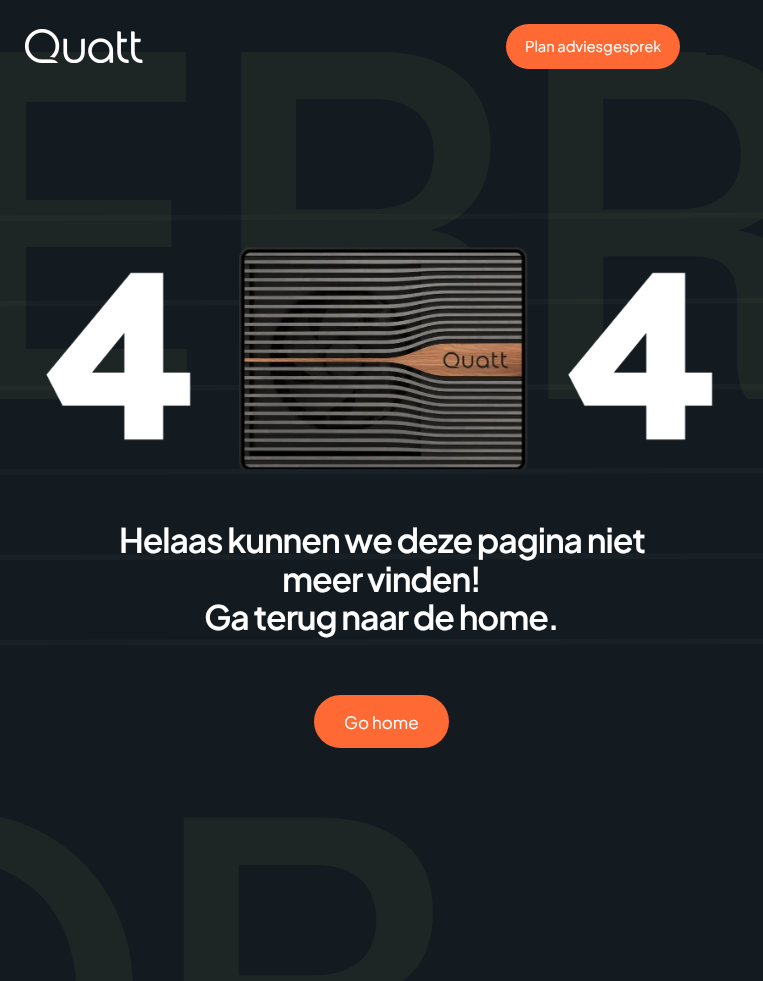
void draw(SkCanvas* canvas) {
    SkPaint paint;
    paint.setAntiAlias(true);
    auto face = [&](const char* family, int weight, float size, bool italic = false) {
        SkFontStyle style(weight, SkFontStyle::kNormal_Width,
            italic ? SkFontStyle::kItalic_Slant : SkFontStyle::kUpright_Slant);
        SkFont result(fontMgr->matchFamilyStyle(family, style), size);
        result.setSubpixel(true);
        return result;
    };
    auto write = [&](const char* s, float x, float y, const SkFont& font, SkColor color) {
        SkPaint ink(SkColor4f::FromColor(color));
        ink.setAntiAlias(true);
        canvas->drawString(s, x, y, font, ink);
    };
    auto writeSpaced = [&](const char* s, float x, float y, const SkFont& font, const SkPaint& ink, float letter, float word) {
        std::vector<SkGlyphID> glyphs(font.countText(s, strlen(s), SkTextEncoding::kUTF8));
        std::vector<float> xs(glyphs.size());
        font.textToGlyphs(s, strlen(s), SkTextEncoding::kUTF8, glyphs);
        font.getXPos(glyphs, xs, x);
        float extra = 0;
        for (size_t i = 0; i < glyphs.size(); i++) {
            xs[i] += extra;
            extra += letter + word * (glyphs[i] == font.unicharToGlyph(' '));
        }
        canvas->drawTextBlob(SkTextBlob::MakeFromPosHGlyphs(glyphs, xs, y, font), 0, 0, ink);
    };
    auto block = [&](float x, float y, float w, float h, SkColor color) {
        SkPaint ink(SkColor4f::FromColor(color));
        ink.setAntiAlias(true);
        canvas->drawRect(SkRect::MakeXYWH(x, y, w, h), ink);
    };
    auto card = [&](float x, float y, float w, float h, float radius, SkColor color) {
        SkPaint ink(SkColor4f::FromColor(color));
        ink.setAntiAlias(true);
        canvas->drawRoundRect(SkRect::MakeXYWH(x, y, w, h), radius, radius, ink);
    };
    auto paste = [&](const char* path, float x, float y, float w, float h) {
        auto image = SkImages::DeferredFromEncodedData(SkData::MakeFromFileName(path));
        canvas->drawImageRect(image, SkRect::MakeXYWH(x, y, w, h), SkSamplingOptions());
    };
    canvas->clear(SkColorSetRGB(19, 26, 32));
    paste("pic2.png", 0, 52, 763, 929);
    paste("pic1.png", 25, 29, 118, 34);
    card(506, 24, 174, 45, 22.5f, SkColorSetRGB(255, 105, 51));
    auto kFont1 = face("Plus Jakarta Sans", 400, 14.75f);
    write("Plan adviesgesprek", 525, 52, kFont1, SK_ColorWHITE);
    block(706, 53, 13, 2, SkColorSetRGB(19, 26, 32));
    paste("pic3.png", 46, 247, 667, 222);
    auto kFont2 = face("Plus Jakarta Sans", 600, 33.75f);
    paint.setColor(SK_ColorWHITE);
    writeSpaced("Helaas kunnen we deze pagina niet", 119, 553, kFont2, paint, -1.1f, 0);
    writeSpaced("meer vinden!", 282, 592, kFont2, paint, -1.1f, 0);
    writeSpaced("Ga terug naar de home.", 204, 630, kFont2, paint, -1.1f, 0);
    card(314, 695, 135, 53, 26.5f, SkColorSetRGB(255, 105, 51));
    auto kFont3 = face("Plus Jakarta Sans", 400, 17);
    write("Go home", 344, 729, kFont3, SK_ColorWHITE);
}
